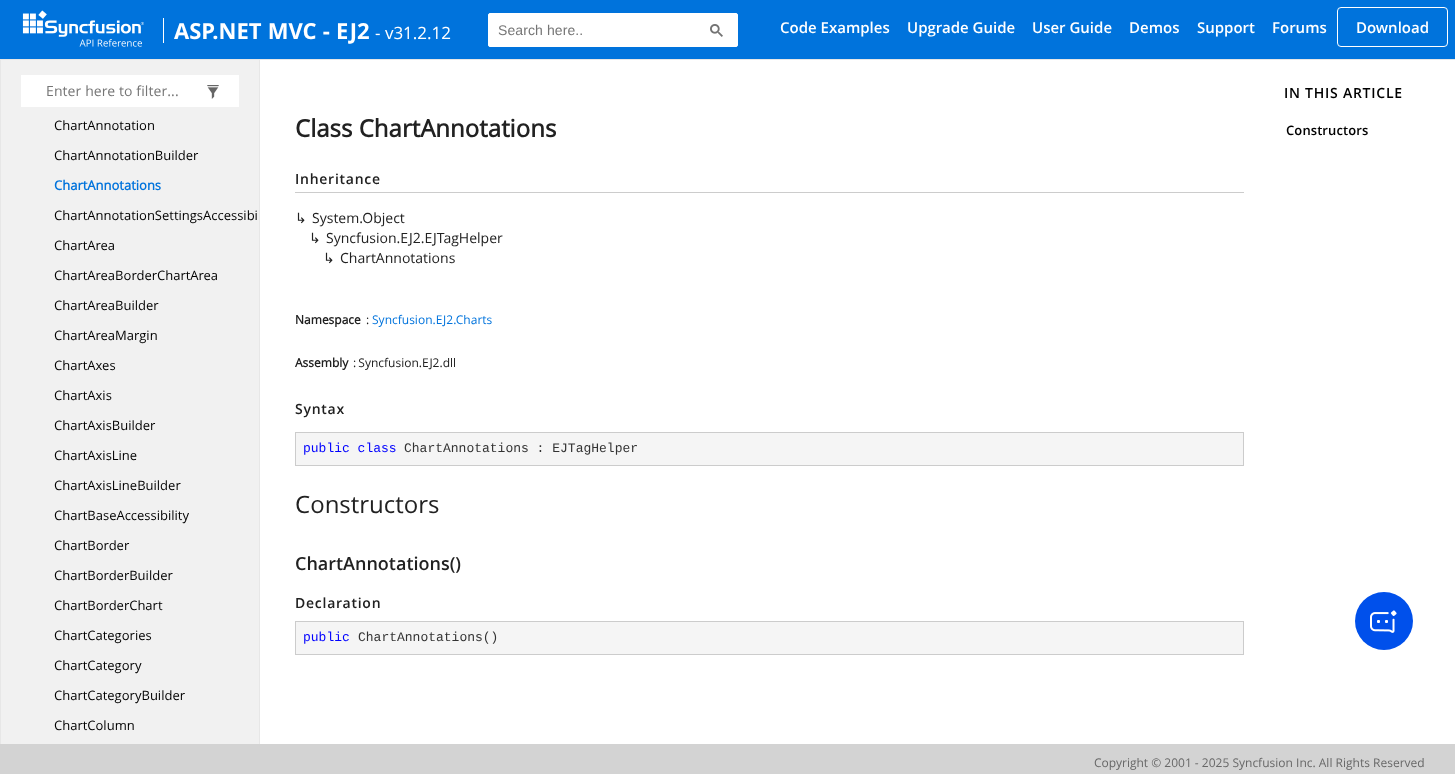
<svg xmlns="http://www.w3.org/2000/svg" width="1455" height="774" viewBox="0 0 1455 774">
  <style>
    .t1 { font: bold 22px 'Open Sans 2'; fill: #fff; }
    .t2 { font: 17px Open Sans; fill: #fff; }
    .t3 { font: 14px Liberation Sans; letter-spacing: 0.1px; fill: #757575; }
    .t4 { font: 600 15px Open Sans; fill: #fff; }
    .t5 { font: 14px Open Sans; letter-spacing: 0.1px; fill: #757575; }
    .t6 { font: 13px Open Sans; fill: #000; }
    .t7 { font: bold 13px Open Sans; fill: #0073dc; }
    .t8 { font: 600 14px Open Sans; letter-spacing: 0.75px; fill: #000; }
    .t9 { font: 600 13px Open Sans; letter-spacing: 0.1px; fill: #000; }
    .t10 { font: bold 24px Open Sans; fill: #212121; }
    .t11 { font: 600 14px Open Sans; letter-spacing: 0.75px; fill: #212121; }
    .t12 { font: 14px DejaVu Sans; fill: #212121; }
    .t13 { font: 14px Open Sans; fill: #212121; }
    .t14 { font: bold 12px Open Sans; fill: #212121; }
    .t15 { font: 12px Open Sans; fill: #212121; }
    .t16 { font: 12px Open Sans; fill: #0073dc; }
    .t17 { font: 13px Liberation Mono; fill: #00f; }
    .t18 { font: 13px Liberation Mono; fill: #333; }
    .t19 { font: 24px Open Sans; fill: #212121; }
    .t20 { font: 600 18px Open Sans; fill: #212121; }
    .t21 { font: 12px Open Sans; fill: #686868; }
  </style>
  <rect width="100%" height="100%" fill="#fff"/>
  <rect x="0" y="0" width="1455" height="59" fill="#0073dc"/>
  <rect x="0" y="59" width="1455" height="1" fill="#e7e7e7"/>
  <image x="22" y="10" width="122" height="37" href="images/1.png"/>
  <rect x="163" y="18" width="1" height="25" fill="#fff"/>
  <text x="174" y="39" word-spacing="0.5" class="t1">ASP.NET MVC - EJ2</text>
  <text x="375" y="39" class="t2">- v31.2.12</text>
  <rect x="488.5" y="13.5" width="249" height="33" rx="1.5" fill="#fff" stroke="#fff"/>
  <text x="498" y="35" class="t3">Search here..</text>
  <image x="710" y="24" width="13" height="13" href="images/2.png"/>
  <text x="780" y="33" class="t4">Code Examples</text>
  <text x="907" y="33" class="t4">Upgrade Guide</text>
  <text x="1032" y="33" class="t4">User Guide</text>
  <text x="1129" y="33" class="t4">Demos</text>
  <text x="1197" y="33" class="t4">Support</text>
  <text x="1272" y="33" class="t4">Forums</text>
  <rect x="1337.5" y="7.5" width="110" height="39" rx="3.5" fill="none" stroke="#fff"/>
  <text x="1356" y="33" class="t4">Download</text>
  <rect x="1" y="60" width="258" height="684" fill="#f1f1f1"/>
  <rect x="259" y="60" width="1" height="684" fill="#e7e7e7"/>
  <rect x="0" y="60" width="1" height="684" fill="#e7e7e7"/>
  <rect x="21" y="75" width="218" height="32" fill="#fff"/>
  <text x="46" y="96" class="t5">Enter here to filter...</text>
  <image x="207" y="85" width="12" height="14" href="images/3.png"/>
  <text x="54" y="130" class="t6">ChartAnnotation</text>
  <text x="54" y="160" class="t6">ChartAnnotationBuilder</text>
  <text x="54" y="190" class="t7">ChartAnnotations</text>
  <text x="54" y="220" class="t6">ChartAnnotationSettingsAccessibi</text>
  <text x="54" y="250" class="t6">ChartArea</text>
  <text x="54" y="280" class="t6">ChartAreaBorderChartArea</text>
  <text x="54" y="310" class="t6">ChartAreaBuilder</text>
  <text x="54" y="340" class="t6">ChartAreaMargin</text>
  <text x="54" y="370" class="t6">ChartAxes</text>
  <text x="54" y="400" class="t6">ChartAxis</text>
  <text x="54" y="430" class="t6">ChartAxisBuilder</text>
  <text x="54" y="460" class="t6">ChartAxisLine</text>
  <text x="54" y="490" class="t6">ChartAxisLineBuilder</text>
  <text x="54" y="520" class="t6">ChartBaseAccessibility</text>
  <text x="54" y="550" class="t6">ChartBorder</text>
  <text x="54" y="580" class="t6">ChartBorderBuilder</text>
  <text x="54" y="610" class="t6">ChartBorderChart</text>
  <text x="54" y="640" class="t6">ChartCategories</text>
  <text x="54" y="670" class="t6">ChartCategory</text>
  <text x="54" y="700" class="t6">ChartCategoryBuilder</text>
  <text x="54" y="730" class="t6">ChartColumn</text>
  <text x="1284" y="98" class="t8">IN THIS ARTICLE</text>
  <text x="1286" y="135" class="t9">Constructors</text>
  <text x="295" y="137" class="t10">Class ChartAnnotations</text>
  <rect x="295" y="192" width="949" height="1" fill="#ccc"/>
  <text x="295" y="184" class="t11">Inheritance</text>
  <text x="295" y="223" class="t12">↳</text>
  <text x="312" y="223" class="t13">System.Object</text>
  <text x="309" y="243" class="t12">↳</text>
  <text x="326" y="243" class="t13">Syncfusion.EJ2.EJTagHelper</text>
  <text x="323" y="263" class="t12">↳</text>
  <text x="340" y="263" class="t13">ChartAnnotations</text>
  <text x="295" y="324" class="t14">Namespace</text>
  <text x="366" y="324" class="t15">:</text>
  <text x="372" y="324" class="t16">Syncfusion.EJ2.Charts</text>
  <text x="295" y="367" class="t14">Assembly</text>
  <text x="353" y="367" word-spacing="-1" class="t15">: Syncfusion.EJ2.dll</text>
  <text x="295" y="414" class="t11">Syntax</text>
  <rect x="295.5" y="432.5" width="948" height="33" fill="#f5f5f5" stroke="#ccc"/>
  <text x="303" y="452" class="t17">public class</text>
  <text x="404" y="452" class="t18">ChartAnnotations : EJTagHelper</text>
  <text x="295" y="513" class="t19">Constructors</text>
  <text x="295" y="570" class="t20">ChartAnnotations()</text>
  <text x="295" y="608" class="t11">Declaration</text>
  <rect x="295.5" y="621.5" width="948" height="33" fill="#f5f5f5" stroke="#ccc"/>
  <text x="303" y="641" class="t17">public</text>
  <text x="358" y="641" class="t18">ChartAnnotations()</text>
  <circle cx="1384" cy="621" r="29" fill="#0050eb"/>
  <image x="1370" y="610" width="27" height="23" href="images/4.png"/>
  <rect x="0" y="744" width="1455" height="30" fill="#d3d3d3"/>
  <text x="1094" y="767" class="t21">Copyright © 2001 - 2025 Syncfusion Inc. All Rights Reserved</text>
</svg>
